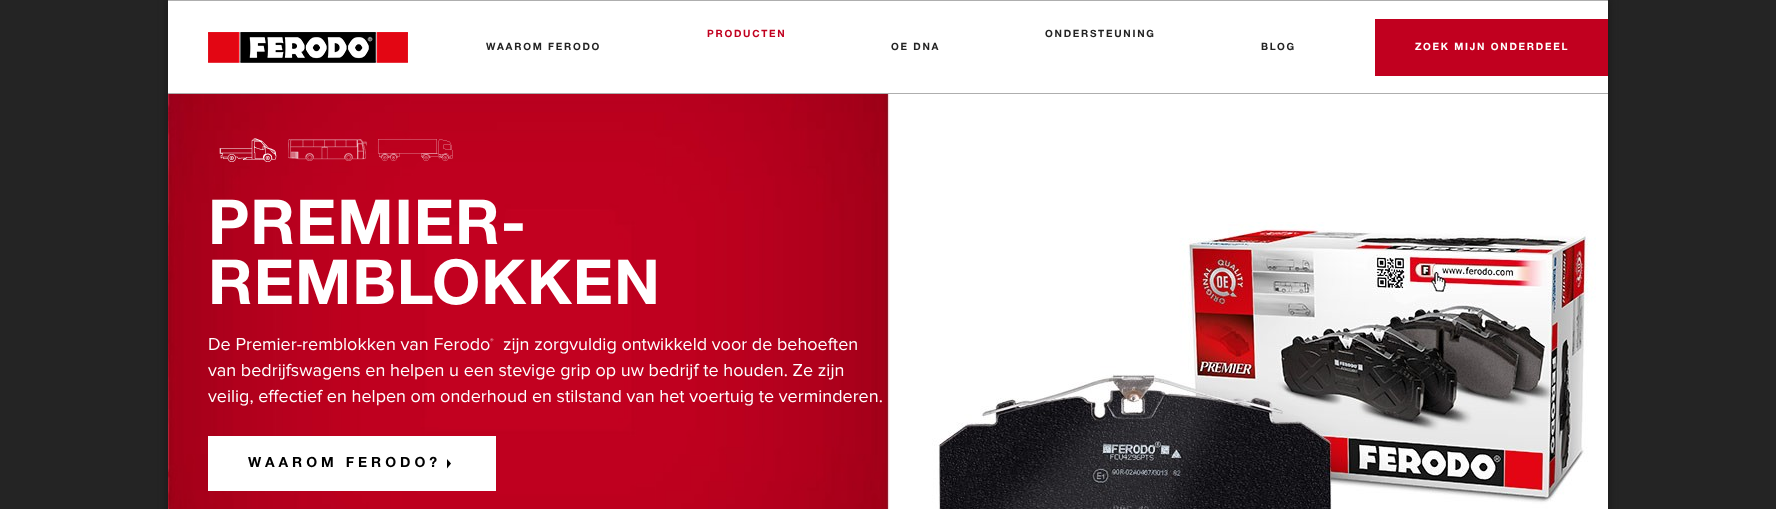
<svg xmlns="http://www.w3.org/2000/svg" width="1776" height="509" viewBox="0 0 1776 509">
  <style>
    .t1 { font: 10px '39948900'; letter-spacing: 1.75px; fill: #c1001f; }
    .t2 { font: 10px '39948900'; letter-spacing: 1.75px; fill: #242424; }
    .t3 { font: 10px '39948900'; letter-spacing: 1.75px; fill: #fff; }
    .t4 { font: 62px '39948900'; letter-spacing: 1px; fill: #fff; }
    .t5 { font: 18px Proxima Nova; fill: #fff; }
    .t6 { font: 7px Proxima Nova; fill: #fff; }
    .t7 { font: 14px '39948900'; letter-spacing: 4px; fill: #000; }
  </style>
  <rect width="100%" height="100%" fill="#242424"/>
  <rect x="168" y="0" width="1440" height="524" fill="#181818" filter="blur(5px)"/>
  <rect x="890" y="94" width="718" height="415" fill="#fff"/>
  <rect x="168" y="1" width="1440" height="92" fill="#fff"/>
  <rect x="168" y="0" width="1440" height="1" fill="#aeaeae"/>
  <rect x="168" y="93" width="1440" height="1" fill="#aeaeae"/>
  <image x="208" y="32" width="200" height="31" href="images/1.png"/>
  <text x="707" y="37" class="t1">PRODUCTEN</text>
  <text x="1045" y="37" class="t2">ONDERSTEUNING</text>
  <text x="486" y="50" class="t2">WAAROM FERODO</text>
  <text x="891" y="50" class="t2">OE DNA</text>
  <text x="1261" y="50" class="t2">BLOG</text>
  <rect x="1375" y="19" width="233" height="57" fill="#c1001f"/>
  <text x="1415" y="50" class="t3">ZOEK MIJN ONDERDEEL</text>
  <image x="168" y="94" width="722" height="415" href="images/2.png"/>
  <image x="219" y="138" width="234" height="24" href="images/3.png"/>
  <text x="208" y="244" class="t4">PREMIER-</text>
  <text x="208" y="304" class="t4">REMBLOKKEN</text>
  <text x="208" y="350" class="t5">De Premier-remblokken van Ferodo</text>
  <text x="490" y="343" class="t6">®</text>
  <text x="503" y="350" class="t5">zijn zorgvuldig ontwikkeld voor de behoeften</text>
  <text x="208" y="376" class="t5">van bedrijfswagens en helpen u een stevige grip op uw bedrijf te houden. Ze zijn</text>
  <text x="208" y="402" class="t5">veilig, effectief en helpen om onderhoud en stilstand van het voertuig te verminderen.</text>
  <rect x="208" y="436" width="288" height="55" fill="#fff"/>
  <text x="248" y="467" class="t7">WAAROM FERODO?</text>
  <path d="M451 463.5L447 468.5V459Z" fill="#000"/>
  <image x="932" y="222" width="664" height="287" href="images/4.png"/>
</svg>
